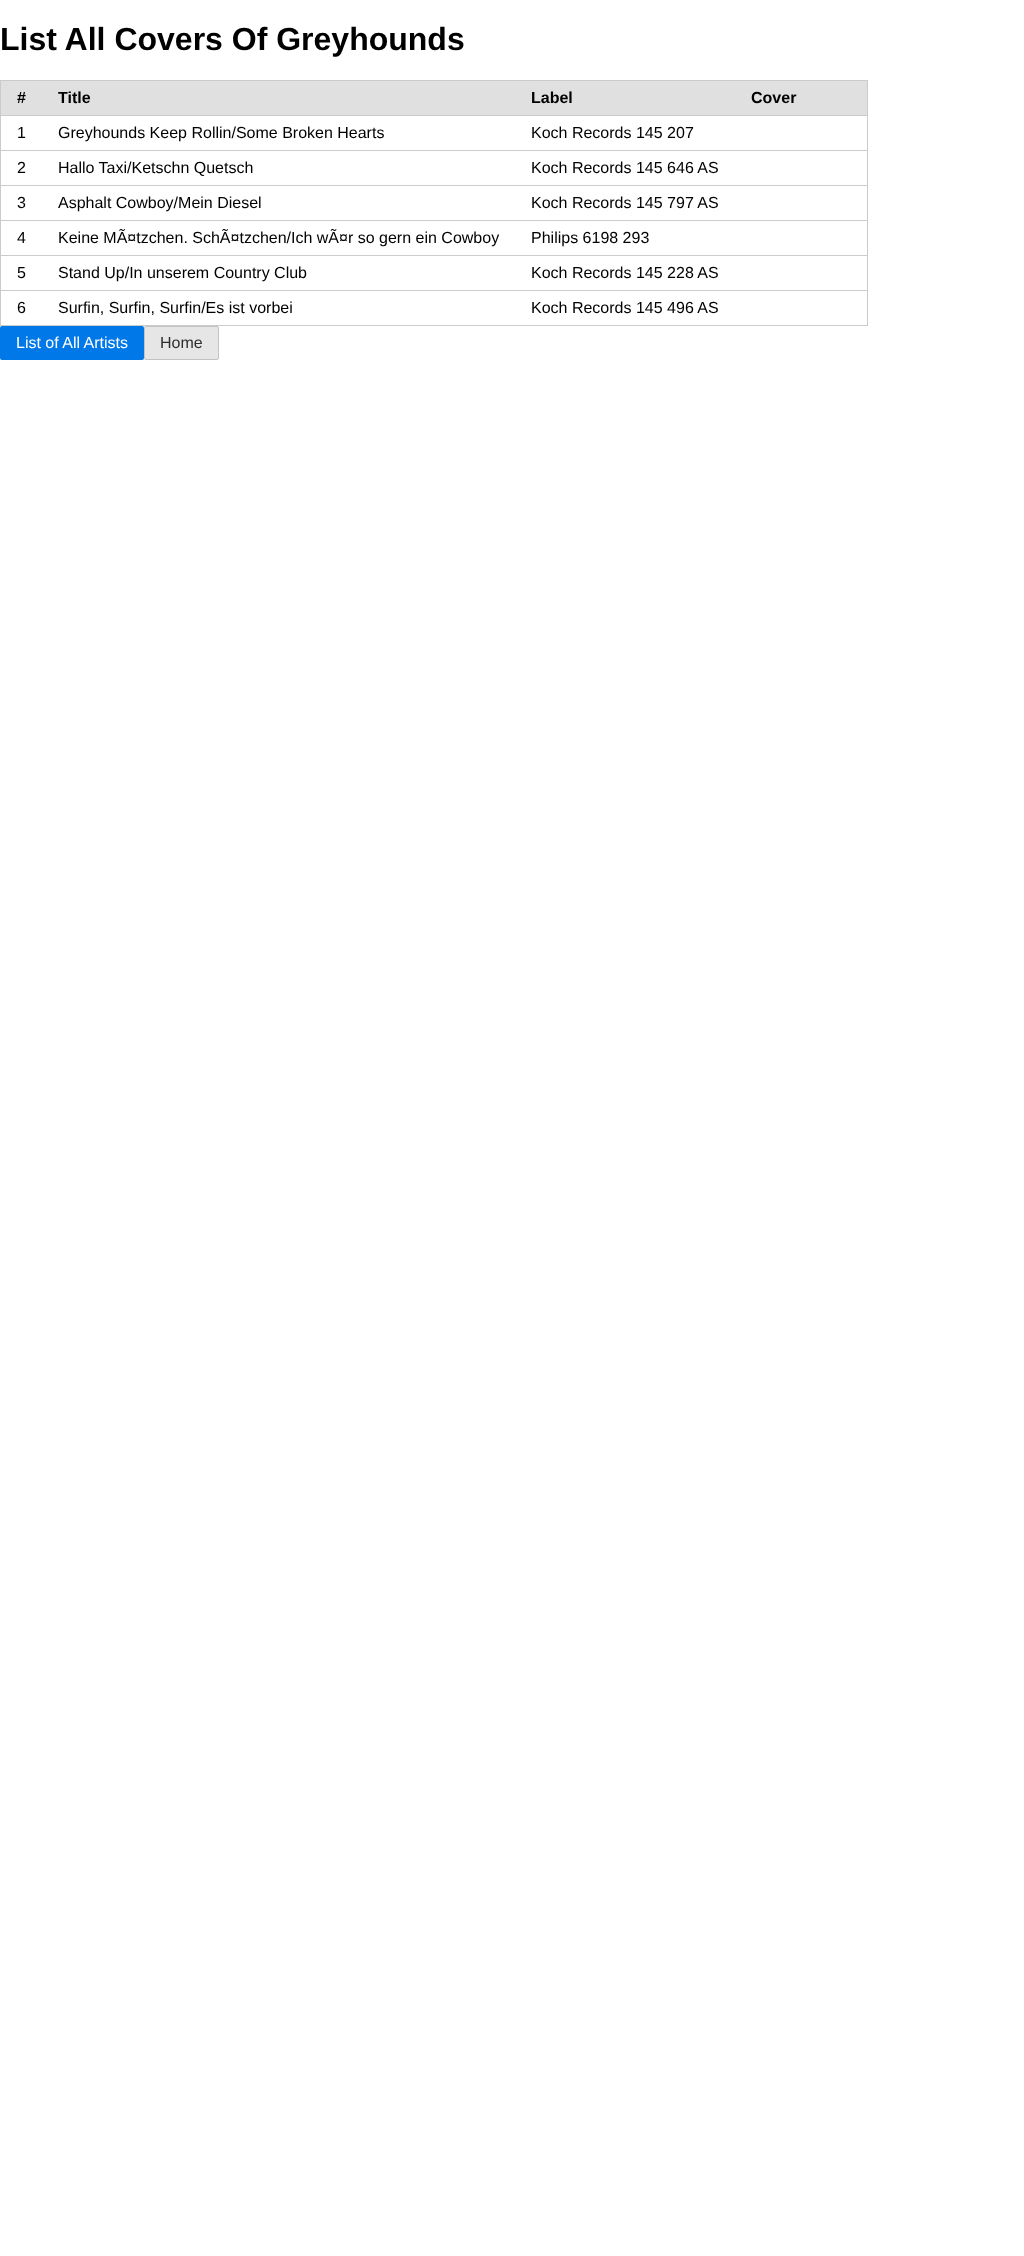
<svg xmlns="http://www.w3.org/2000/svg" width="1024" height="2256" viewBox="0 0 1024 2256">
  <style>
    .t1 { font: bold 32px Liberation Sans; fill: #000; }
    .t2 { font: bold 16px Liberation Sans; fill: #000; }
    .t3 { font: 16px Liberation Sans; fill: #000; }
    .t4 { font: 16px Liberation Sans; fill: #fff; }
    .t5 { font: 16px Liberation Sans; fill: #2e2e2e; }
  </style>
  <rect width="100%" height="100%" fill="#fff"/>
  <text x="0" y="50" class="t1">List All Covers Of Greyhounds</text>
  <rect x="0" y="80" width="868" height="1" fill="#cbcbcb"/>
  <rect x="867" y="80" width="1" height="246" fill="#cbcbcb"/>
  <rect x="0" y="325" width="868" height="1" fill="#cbcbcb"/>
  <rect x="0" y="80" width="1" height="246" fill="#cbcbcb"/>
  <rect x="1" y="81" width="866" height="34" fill="#e0e0e0"/>
  <text x="17" y="103" class="t2">#</text>
  <text x="58" y="103" class="t2">Title</text>
  <text x="531" y="103" class="t2">Label</text>
  <rect x="0" y="115" width="868" height="1" fill="#cbcbcb"/>
  <text x="751" y="103" class="t2">Cover</text>
  <text x="17" y="138" class="t3">1</text>
  <text x="58" y="138" class="t3">Greyhounds Keep Rollin/Some Broken Hearts</text>
  <text x="531" y="138" class="t3">Koch Records 145 207</text>
  <rect x="0" y="150" width="868" height="1" fill="#cbcbcb"/>
  <text x="17" y="173" class="t3">2</text>
  <text x="58" y="173" class="t3">Hallo Taxi/Ketschn Quetsch</text>
  <text x="531" y="173" class="t3">Koch Records 145 646 AS</text>
  <rect x="0" y="185" width="868" height="1" fill="#cbcbcb"/>
  <text x="17" y="208" class="t3">3</text>
  <text x="58" y="208" class="t3">Asphalt Cowboy/Mein Diesel</text>
  <text x="531" y="208" class="t3">Koch Records 145 797 AS</text>
  <rect x="0" y="220" width="868" height="1" fill="#cbcbcb"/>
  <text x="17" y="243" class="t3">4</text>
  <text x="58" y="243" class="t3">Keine MÃ¤tzchen. SchÃ¤tzchen/Ich wÃ¤r so gern ein Cowboy</text>
  <text x="531" y="243" class="t3">Philips 6198 293</text>
  <rect x="0" y="255" width="868" height="1" fill="#cbcbcb"/>
  <text x="17" y="278" class="t3">5</text>
  <text x="58" y="278" class="t3">Stand Up/In unserem Country Club</text>
  <text x="531" y="278" class="t3">Koch Records 145 228 AS</text>
  <rect x="0" y="290" width="868" height="1" fill="#cbcbcb"/>
  <text x="17" y="313" class="t3">6</text>
  <text x="58" y="313" class="t3">Surfin, Surfin, Surfin/Es ist vorbei</text>
  <text x="531" y="313" class="t3">Koch Records 145 496 AS</text>
  <rect x="0" y="326" width="144" height="34" rx="2" fill="#0078e7"/>
  <text x="16" y="348" class="t4">List of All Artists</text>
  <rect x="144" y="326" width="75" height="34" rx="2" fill="#e6e6e6"/>
  <rect x="144.5" y="326.5" width="74" height="33" rx="1.5" fill="none" stroke="#00000026"/>
  <text x="160" y="348" class="t5">Home</text>
</svg>
